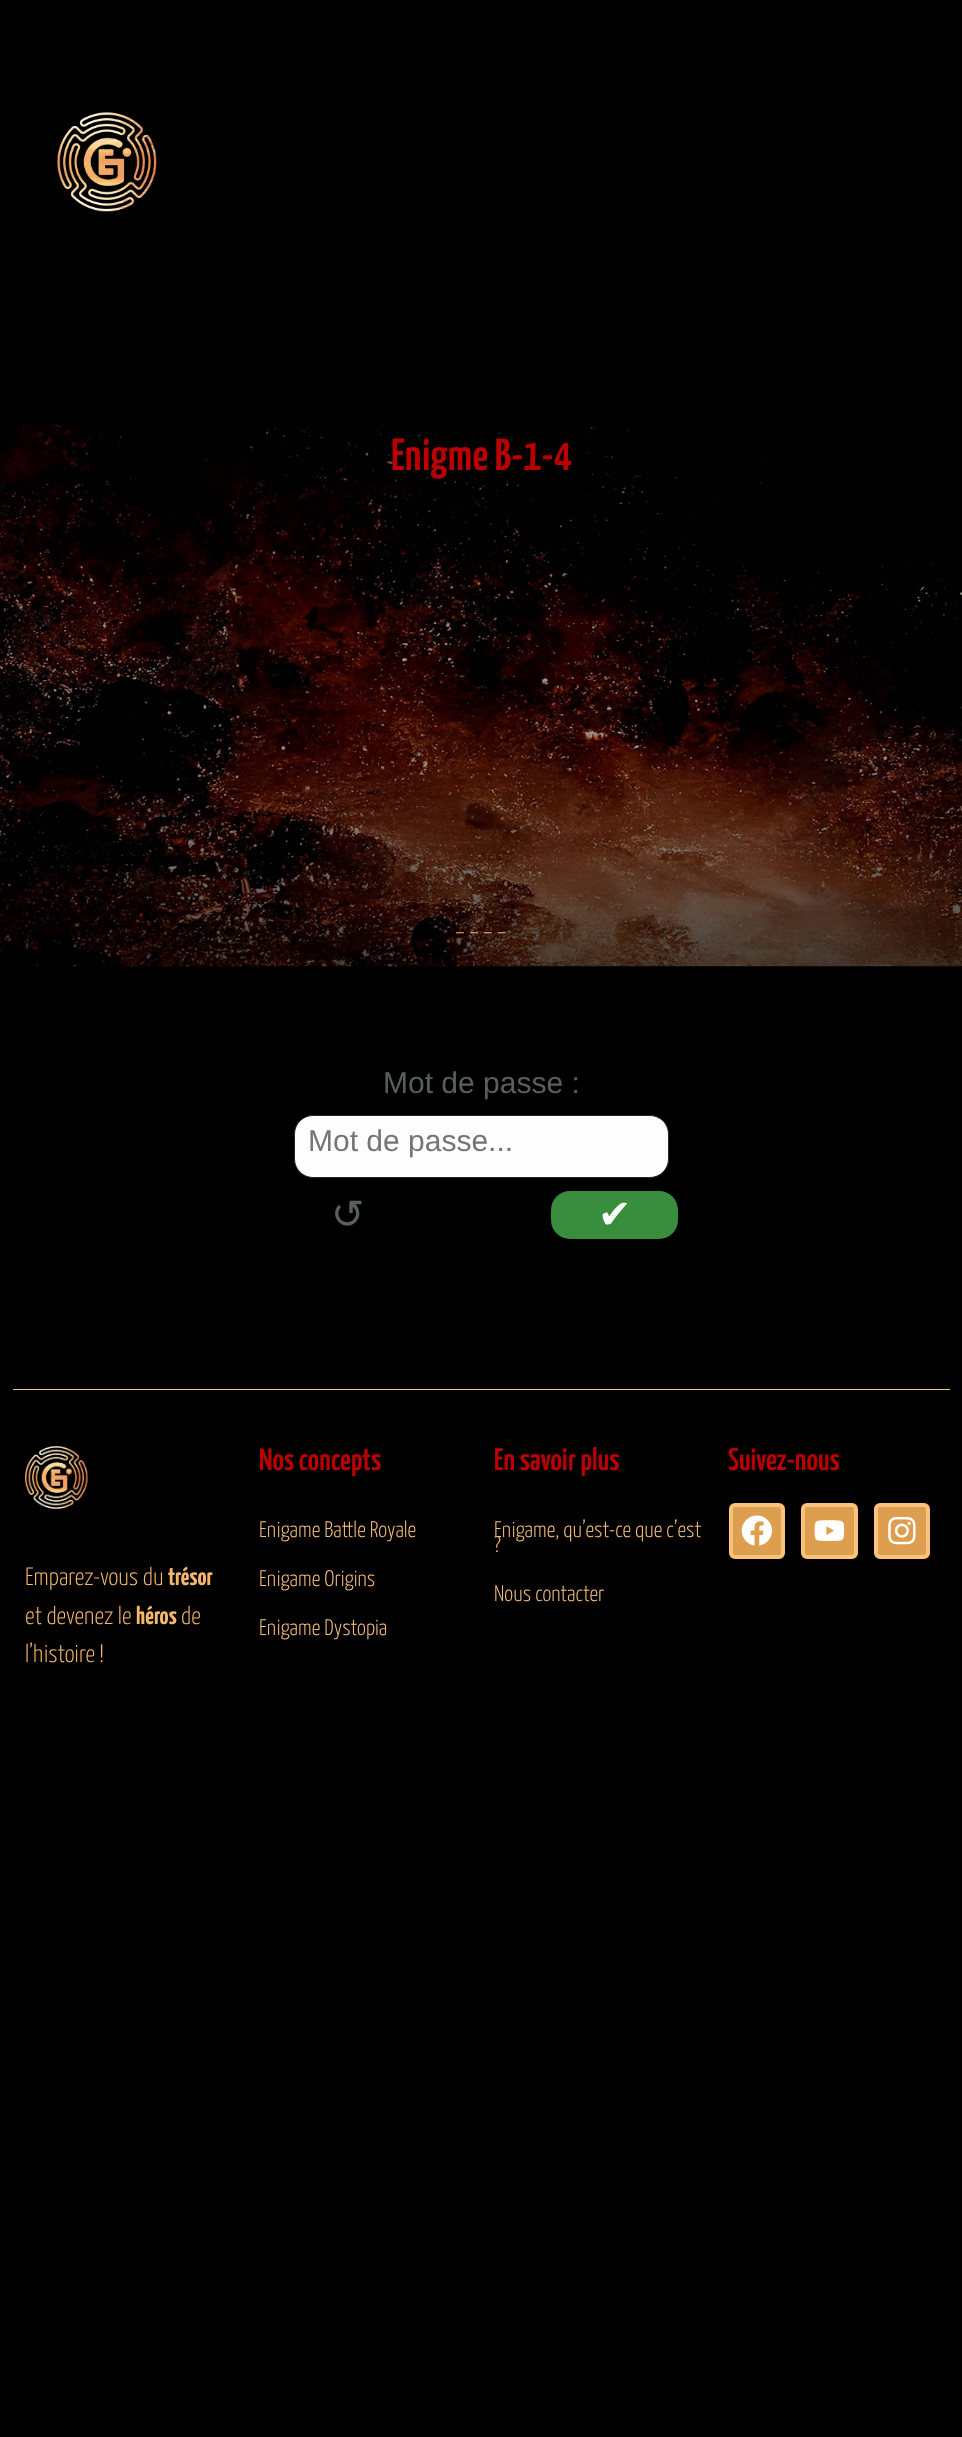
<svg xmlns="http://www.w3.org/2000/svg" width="962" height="2437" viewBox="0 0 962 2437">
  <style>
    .t1 { font: 600 45px Yanone Kaffeesatz; fill: #bb0001; }
    .t2 { font: 300 22.5px Yanone Kaffeesatz; fill: #f5b76b; }
    .t3 { font: 30px Liberation Sans; fill: #595f5f; }
    .t4 { font: 30px Liberation Sans; fill: #757575; }
    .t5 { font: 40px DejaVu Sans; fill: #595f5f; }
    .t6 { font: 40px DejaVu Sans; fill: #fdfdfd; }
    .t7 { font: 300 25px Yanone Kaffeesatz; fill: #f5b76b; }
    .t8 { font: bold 25px Yanone Kaffeesatz; fill: #f5b76b; }
    .t9 { font: 600 31.25px Yanone Kaffeesatz; fill: #bb0001; }
    .t10 { font: 300 22.5px Yanone Kaffeesatz; fill: #fbc27c; }
  </style>
  <rect width="100%" height="100%" fill="#000"/>
  <image x="57" y="112" width="100" height="100" href="images/1.png"/>
  <image x="0" y="423" width="962" height="544" href="images/2.png"/>
  <text x="391" y="470" class="t1">Enigme B-1-4</text>
  <text x="455" y="939" class="t2">– – – –</text>
  <text x="383" y="1093" class="t3">Mot de passe :</text>
  <rect x="294.5" y="1115.5" width="374" height="62" rx="18.5" fill="#fdfdfd" stroke="#272727"/>
  <text x="308" y="1151" class="t4">Mot de passe...</text>
  <text x="331" y="1228" class="t5">↺</text>
  <rect x="551" y="1191" width="127" height="48" rx="19" fill="#388e3c"/>
  <text x="598" y="1228" class="t6">✔︎</text>
  <rect x="13" y="1389" width="937" height="1" fill="#fbc27c"/>
  <image x="25" y="1446" width="63" height="63" href="images/3.png"/>
  <text x="25" y="1585" class="t7">Emparez-vous du</text>
  <text x="168" y="1585" class="t8">trésor</text>
  <text x="25" y="1624" class="t7">et devenez le</text>
  <text x="136" y="1624" class="t8">héros</text>
  <text x="181" y="1624" class="t7">de</text>
  <text x="25" y="1662" class="t7">l’histoire !</text>
  <text x="259" y="1470" class="t9">Nos concepts</text>
  <text x="259" y="1537" class="t10">Enigame Battle Royale</text>
  <text x="259" y="1586" class="t10">Enigame Origins</text>
  <text x="259" y="1635" class="t10">Enigame Dystopia</text>
  <text x="494" y="1470" class="t9">En savoir plus</text>
  <text x="494" y="1537" class="t10">Enigame, qu’est-ce que c’est</text>
  <text x="494" y="1552" class="t10">?</text>
  <text x="494" y="1601" class="t10">Nous contacter</text>
  <text x="728" y="1470" class="t9">Suivez-nous</text>
  <rect x="731" y="1505" width="52" height="52" rx="4" fill="#de9e4f" stroke="#fbc27c" stroke-width="4"/>
  <image x="741" y="1515" width="31" height="31" href="images/4.png"/>
  <rect x="803" y="1505" width="53" height="52" rx="4" fill="#de9e4f" stroke="#fbc27c" stroke-width="4"/>
  <image x="814" y="1520" width="31" height="22" href="images/5.png"/>
  <rect x="876" y="1505" width="52" height="52" rx="4" fill="#de9e4f" stroke="#fbc27c" stroke-width="4"/>
  <image x="888" y="1516" width="28" height="29" href="images/6.png"/>
</svg>
